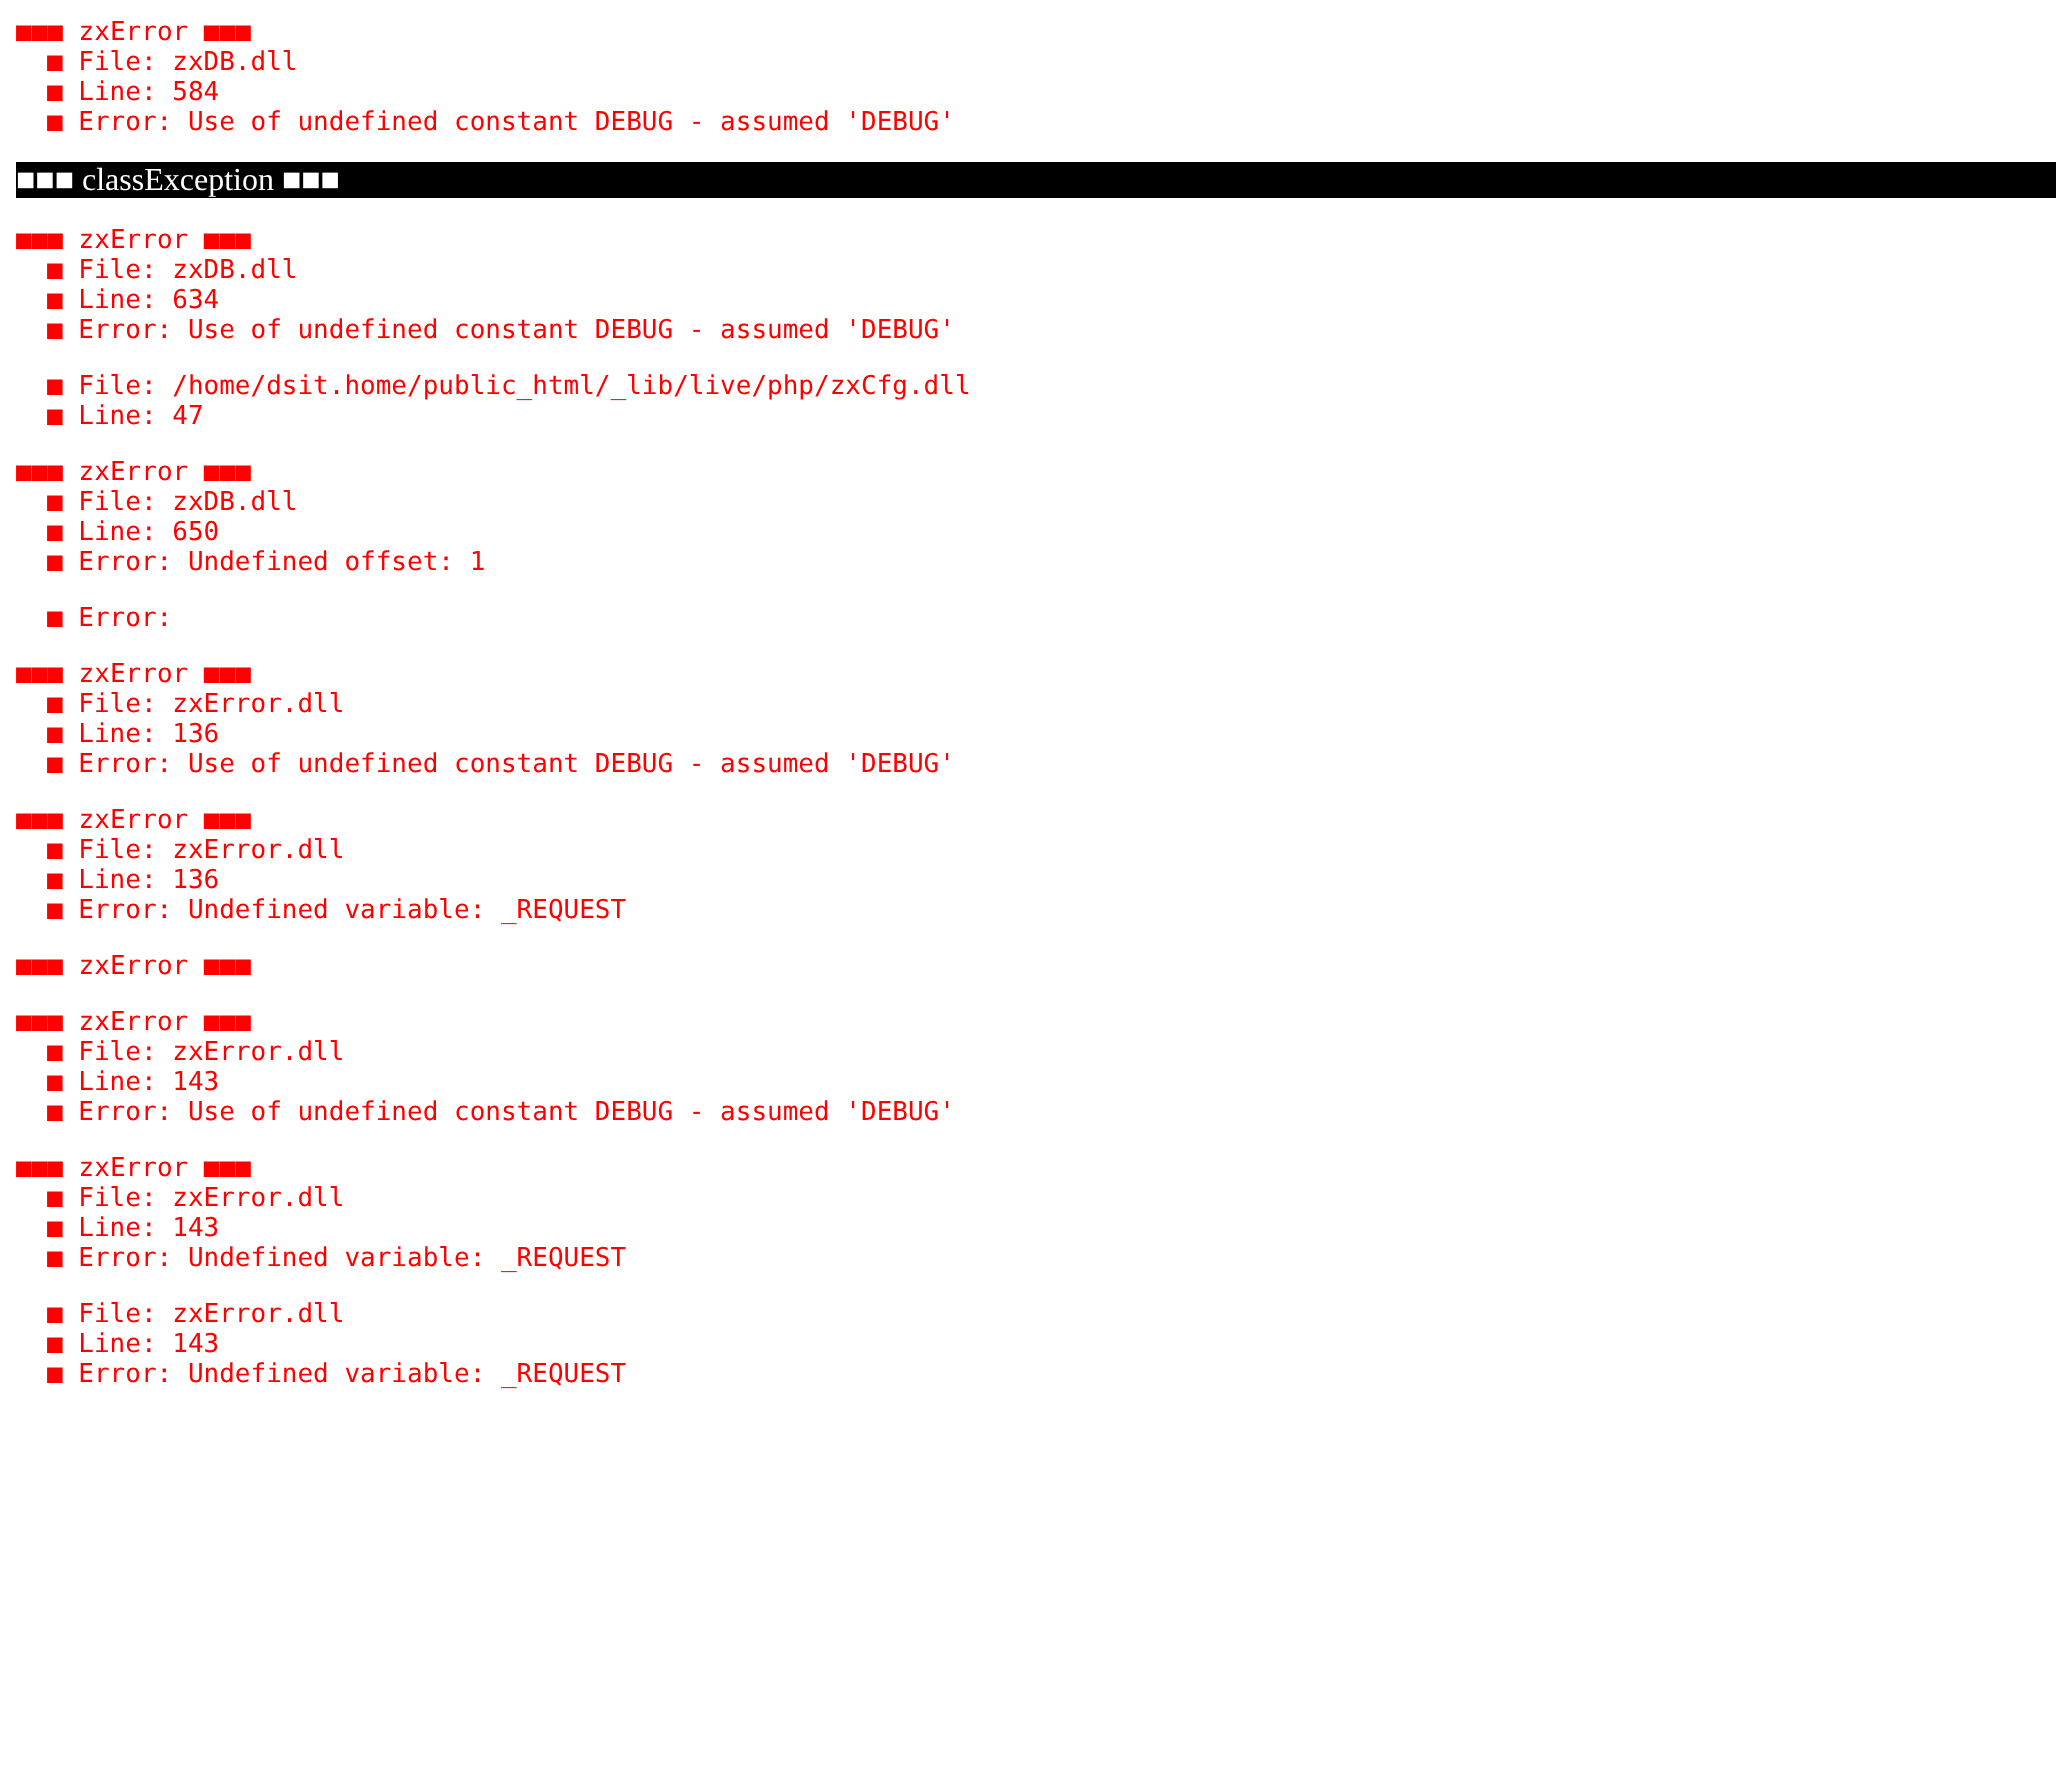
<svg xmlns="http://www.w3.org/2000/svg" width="2071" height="1789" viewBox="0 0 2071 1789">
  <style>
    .t1 { font: 26px DejaVu Sans Mono; fill: #f00; }
    .t2 { font: 32px Liberation Serif; fill: #fff; }
  </style>
  <rect width="100%" height="100%" fill="#fff"/>
  <text x="16" y="40" class="t1">■■■ zxError ■■■</text>
  <text x="47" y="70" class="t1">■ File: zxDB.dll</text>
  <text x="47" y="100" class="t1">■ Line: 584</text>
  <text x="47" y="130" class="t1">■ Error: Use of undefined constant DEBUG - assumed 'DEBUG'</text>
  <rect x="16" y="162" width="2040" height="36" fill="#000"/>
  <text x="16" y="190" class="t2">■■■ classException ■■■</text>
  <text x="16" y="248" class="t1">■■■ zxError ■■■</text>
  <text x="47" y="278" class="t1">■ File: zxDB.dll</text>
  <text x="47" y="308" class="t1">■ Line: 634</text>
  <text x="47" y="338" class="t1">■ Error: Use of undefined constant DEBUG - assumed 'DEBUG'</text>
  <text x="47" y="394" class="t1">■ File: /home/dsit.home/public_html/_lib/live/php/zxCfg.dll</text>
  <text x="47" y="424" class="t1">■ Line: 47</text>
  <text x="16" y="480" class="t1">■■■ zxError ■■■</text>
  <text x="47" y="510" class="t1">■ File: zxDB.dll</text>
  <text x="47" y="540" class="t1">■ Line: 650</text>
  <text x="47" y="570" class="t1">■ Error: Undefined offset: 1</text>
  <text x="47" y="626" class="t1">■ Error:</text>
  <text x="16" y="682" class="t1">■■■ zxError ■■■</text>
  <text x="47" y="712" class="t1">■ File: zxError.dll</text>
  <text x="47" y="742" class="t1">■ Line: 136</text>
  <text x="47" y="772" class="t1">■ Error: Use of undefined constant DEBUG - assumed 'DEBUG'</text>
  <text x="16" y="828" class="t1">■■■ zxError ■■■</text>
  <text x="47" y="858" class="t1">■ File: zxError.dll</text>
  <text x="47" y="888" class="t1">■ Line: 136</text>
  <text x="47" y="918" class="t1">■ Error: Undefined variable: _REQUEST</text>
  <text x="16" y="974" class="t1">■■■ zxError ■■■</text>
  <text x="16" y="1030" class="t1">■■■ zxError ■■■</text>
  <text x="47" y="1060" class="t1">■ File: zxError.dll</text>
  <text x="47" y="1090" class="t1">■ Line: 143</text>
  <text x="47" y="1120" class="t1">■ Error: Use of undefined constant DEBUG - assumed 'DEBUG'</text>
  <text x="16" y="1176" class="t1">■■■ zxError ■■■</text>
  <text x="47" y="1206" class="t1">■ File: zxError.dll</text>
  <text x="47" y="1236" class="t1">■ Line: 143</text>
  <text x="47" y="1266" class="t1">■ Error: Undefined variable: _REQUEST</text>
  <text x="47" y="1322" class="t1">■ File: zxError.dll</text>
  <text x="47" y="1352" class="t1">■ Line: 143</text>
  <text x="47" y="1382" class="t1">■ Error: Undefined variable: _REQUEST</text>
</svg>
